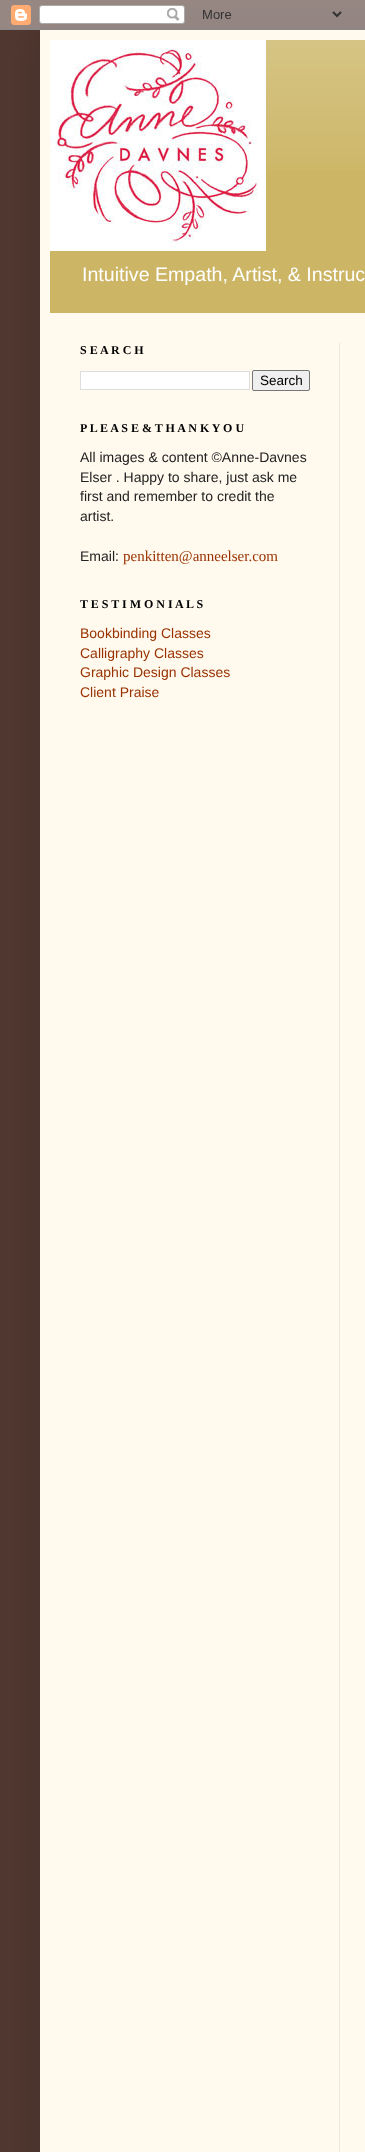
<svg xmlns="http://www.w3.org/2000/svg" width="365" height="2152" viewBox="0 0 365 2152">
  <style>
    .t1 { font: 19.6px Liberation Sans; fill: #fff; }
    .t2 { font: bold 12px Liberation Serif; fill: #000; }
    .t3 { font: 13.5px Liberation Sans; fill: #000; }
    .t4 { font: 14px Liberation Sans; fill: #222; }
    .t5 { font: 15px Liberation Serif; fill: #993200; }
    .t6 { font: 14px Liberation Sans; fill: #993200; }
  </style>
  <rect width="100%" height="100%" fill="#513831"/>
  <rect x="40" y="30" width="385" height="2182" fill="#00000026" filter="blur(20px)"/>
  <image x="0" y="0" width="365" height="30" href="images/1.png"/>
  <rect x="40" y="30" width="325" height="2122" fill="#fff9ee"/>
  <rect x="50" y="40" width="315" height="273" fill="#ccb666"/>
  <image x="266" y="40" width="99" height="130" href="images/2.png"/>
  <image x="50" y="40" width="216" height="211" href="images/3.png"/>
  <text x="82" y="281" class="t1">Intuitive Empath, Artist, &amp; Instruc</text>
  <text x="80" y="354" class="t2">S E A R C H</text>
  <rect x="80.5" y="371.5" width="169" height="18" fill="#fff" stroke="#ddd"/>
  <rect x="252.5" y="370.5" width="57" height="20" rx="1.5" fill="#efefef" stroke="#767676"/>
  <text x="260" y="385" class="t3">Search</text>
  <text x="80" y="432" class="t2">P L E A S E &amp; T H A N K Y O U</text>
  <text x="80" y="462" class="t4">All images &amp; content ©Anne-Davnes</text>
  <text x="80" y="482" class="t4">Elser . Happy to share, just ask me</text>
  <text x="80" y="501" class="t4">first and remember to credit the</text>
  <text x="80" y="521" class="t4">artist.</text>
  <text x="80" y="561" class="t4">Email:</text>
  <text x="123" y="561" class="t5">penkitten@anneelser.com</text>
  <text x="80" y="608" class="t2">T E S T I M O N I A L S</text>
  <text x="80" y="638" class="t6">Bookbinding Classes</text>
  <text x="80" y="658" class="t6">Calligraphy Classes</text>
  <text x="80" y="677" class="t6">Graphic Design Classes</text>
  <text x="80" y="697" class="t6">Client Praise</text>
  <rect x="339" y="343" width="1" height="1809" fill="#eee5dd"/>
</svg>
